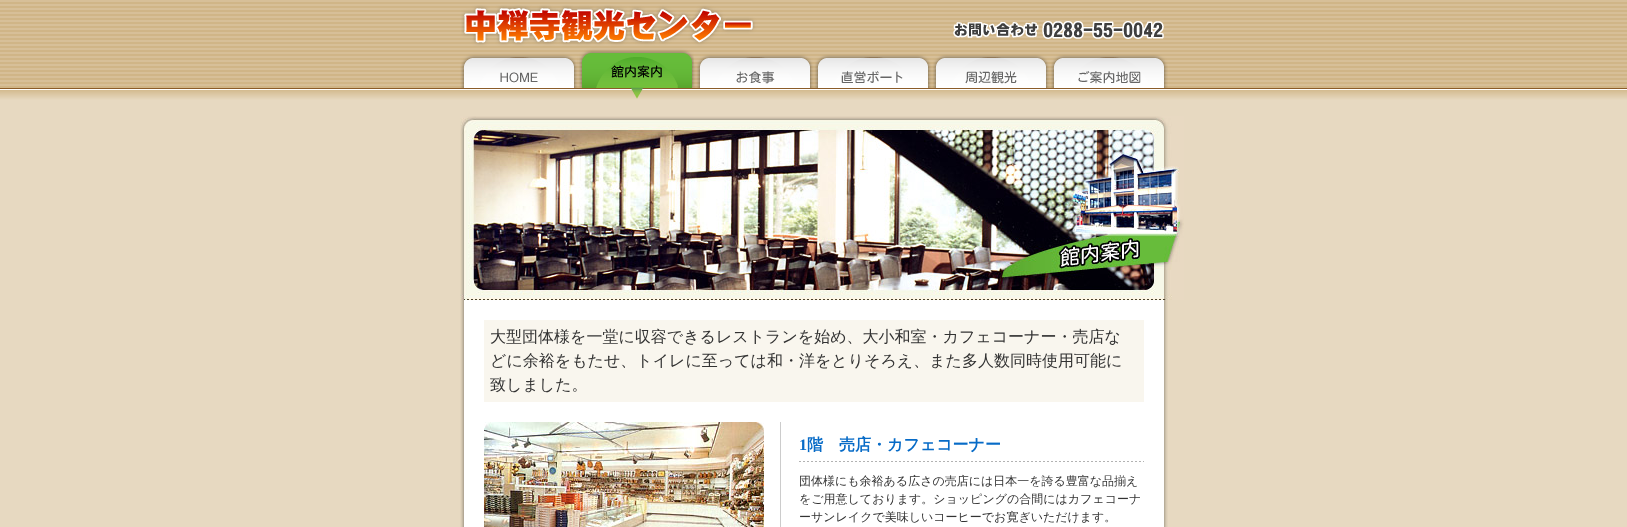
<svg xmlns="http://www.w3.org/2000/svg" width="1627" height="527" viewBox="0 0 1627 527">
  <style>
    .t1 { font: 500 16px WenQuanYi Zen Hei; fill: #333; }
    .t2 { font: bold 16px Liberation Serif; fill: #076bc7; }
    .t3 { font: bold 16px WenQuanYi Zen Hei; fill: #076bc7; }
    .t4 { font: 500 12px WenQuanYi Zen Hei; fill: #333; }
  </style>
  <rect width="100%" height="100%" fill="#fff"/>
  <image x="0" y="0" width="1627" height="100" href="images/1.png"/>
  <image x="461" y="5" width="703" height="39" href="images/2.png"/>
  <image x="460" y="44" width="117" height="44" href="images/3.png"/>
  <image x="577" y="44" width="117" height="55" href="images/4.png"/>
  <image x="694" y="44" width="118" height="44" href="images/5.png"/>
  <image x="812" y="54" width="118" height="34" href="images/6.png"/>
  <image x="930" y="54" width="118" height="34" href="images/7.png"/>
  <image x="1048" y="54" width="120" height="34" href="images/8.png"/>
  <rect x="0" y="100" width="1627" height="427" fill="#e7d9c1"/>
  <image x="460" y="116" width="724" height="184" href="images/9.png"/>
  <image x="460" y="300" width="14" height="227" href="images/10.png"/>
  <rect x="474" y="300" width="680" height="227" fill="#fff"/>
  <rect x="484" y="320" width="660" height="82" fill="#f9f6ee"/>
  <text x="490" y="342" class="t1">大型団体様を一堂に収容できるレストランを始め、大小和室・カフェコーナー・売店な</text>
  <text x="490" y="366" class="t1">どに余裕をもたせ、トイレに至っては和・洋をとりそろえ、また多人数同時使用可能に</text>
  <text x="490" y="390" class="t1">致しました。</text>
  <image x="484" y="422" width="280" height="105" href="images/11.png"/>
  <rect x="780" y="422" width="1" height="105" fill="#ccc"/>
  <text x="799" y="450" class="t2">1</text>
  <text x="807" y="450" class="t3">階　売店・カフェコーナー</text>
  <image x="799" y="461" width="345" height="1" href="images/12.png"/>
  <text x="799" y="485" class="t4">団体様にも余裕ある広さの売店には日本一を誇る豊富な品揃え</text>
  <text x="799" y="503" class="t4">をご用意しております。ショッピングの合間にはカフェコーナ</text>
  <text x="799" y="521" class="t4">ーサンレイクで美味しいコーヒーでお寛ぎいただけます。</text>
  <image x="1154" y="300" width="14" height="227" href="images/13.png"/>
</svg>
